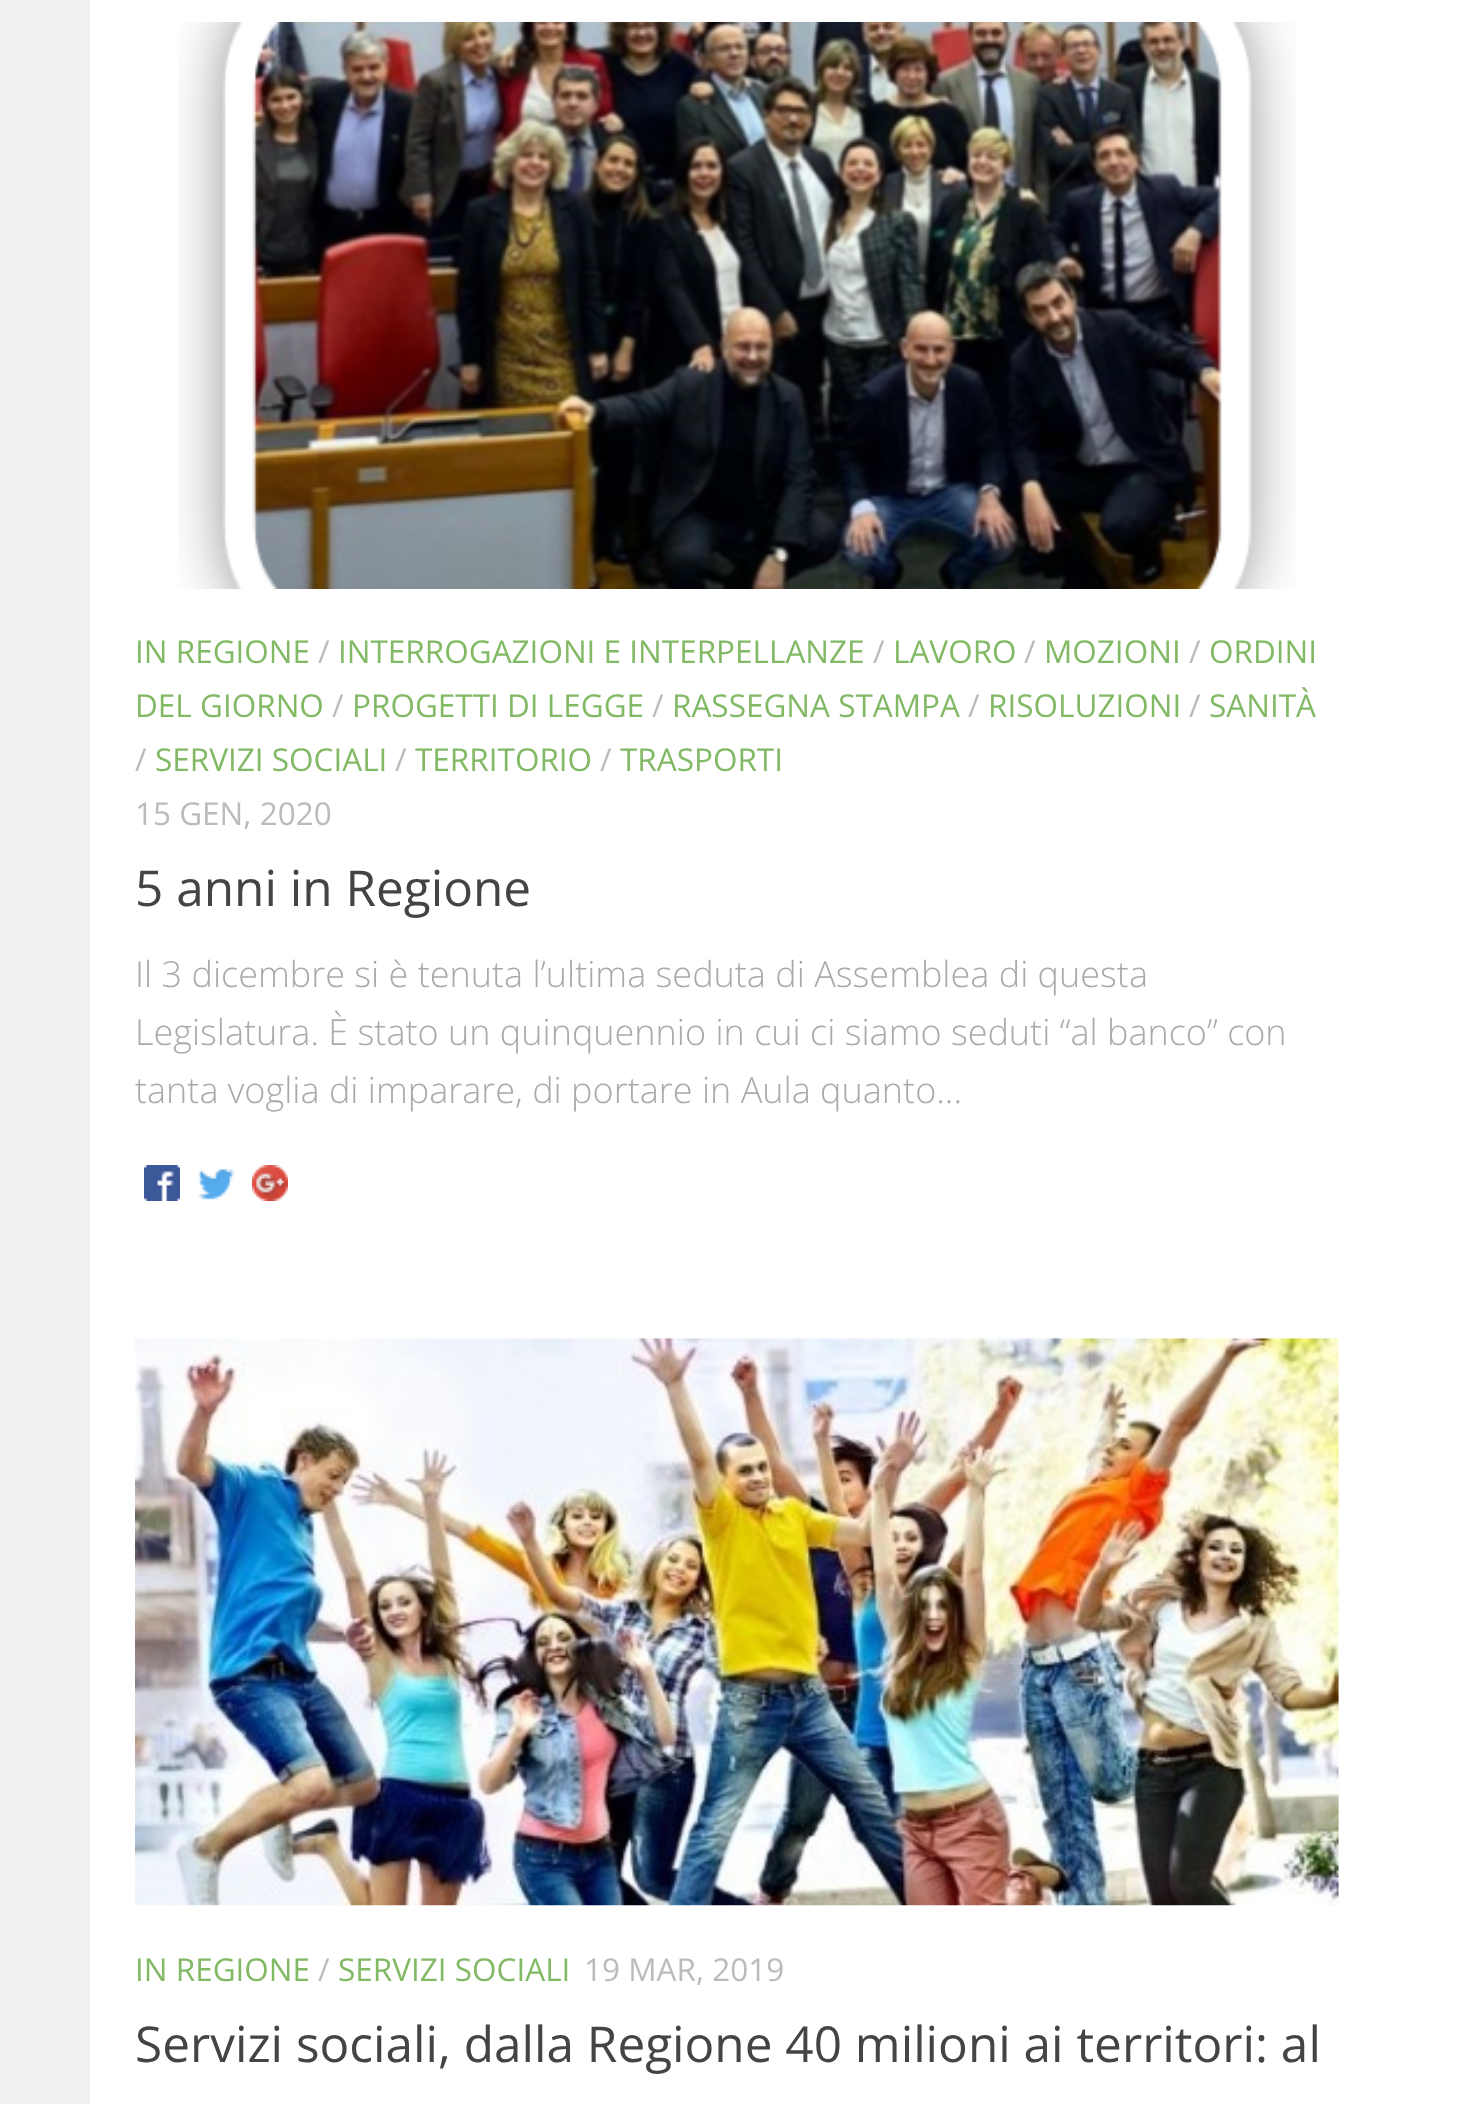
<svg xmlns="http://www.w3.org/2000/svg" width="1472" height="2104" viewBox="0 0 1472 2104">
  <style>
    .t1 { font: 31.5px Open Sans; fill: #82b965; }
    .t2 { font: 31.5px Open Sans; fill: #bbb; }
    .t3 { font: 49.5px Open Sans; fill: #444; }
    .t4 { font: 300 36px Open Sans; fill: #aaa; }
  </style>
  <rect width="100%" height="100%" fill="#fff"/>
  <rect x="0" y="0" width="90" height="2104" fill="#f0f0f0"/>
  <image x="178" y="22" width="1118" height="567" href="images/1.png"/>
  <text x="135" y="663" class="t1">IN REGIONE</text>
  <text x="318" y="663" class="t2">/</text>
  <text x="338" y="663" class="t1">INTERROGAZIONI E INTERPELLANZE</text>
  <text x="873" y="663" class="t2">/</text>
  <text x="893" y="663" class="t1">LAVORO</text>
  <text x="1024" y="663" class="t2">/</text>
  <text x="1044" y="663" class="t1">MOZIONI</text>
  <text x="1189" y="663" class="t2">/</text>
  <text x="1209" y="663" class="t1">ORDINI</text>
  <text x="135" y="717" class="t1">DEL GIORNO</text>
  <text x="332" y="717" class="t2">/</text>
  <text x="352" y="717" class="t1">PROGETTI DI LEGGE</text>
  <text x="652" y="717" class="t2">/</text>
  <text x="672" y="717" class="t1">RASSEGNA STAMPA</text>
  <text x="968" y="717" class="t2">/</text>
  <text x="988" y="717" class="t1">RISOLUZIONI</text>
  <text x="1189" y="717" class="t2">/</text>
  <text x="1209" y="717" class="t1">SANITÀ</text>
  <text x="135" y="771" class="t2">/</text>
  <text x="155" y="771" class="t1">SERVIZI SOCIALI</text>
  <text x="395" y="771" class="t2">/</text>
  <text x="415" y="771" class="t1">TERRITORIO</text>
  <text x="600" y="771" class="t2">/</text>
  <text x="620" y="771" class="t1">TRASPORTI</text>
  <text x="135" y="825" class="t2">15 GEN, 2020</text>
  <text x="135" y="906" class="t3">5 anni in Regione</text>
  <text x="135" y="987" class="t4">Il 3 dicembre si è tenuta l’ultima seduta di Assemblea di questa</text>
  <text x="135" y="1045" class="t4">Legislatura. È stato un quinquennio in cui ci siamo seduti “al banco” con</text>
  <text x="135" y="1103" class="t4">tanta voglia di imparare, di portare in Aula quanto...</text>
  <image x="144" y="1165" width="36" height="36" href="images/2.png"/>
  <image x="198" y="1169" width="36" height="31" href="images/3.png"/>
  <image x="252" y="1165" width="36" height="36" href="images/4.png"/>
  <image x="135" y="1338" width="1204" height="568" href="images/5.png"/>
  <text x="135" y="1981" class="t1">IN REGIONE</text>
  <text x="318" y="1981" class="t2">/</text>
  <text x="338" y="1981" class="t1">SERVIZI SOCIALI</text>
  <text x="584" y="1981" class="t2">19 MAR, 2019</text>
  <text x="135" y="2062" class="t3">Servizi sociali, dalla Regione 40 milioni ai territori: al</text>
</svg>
